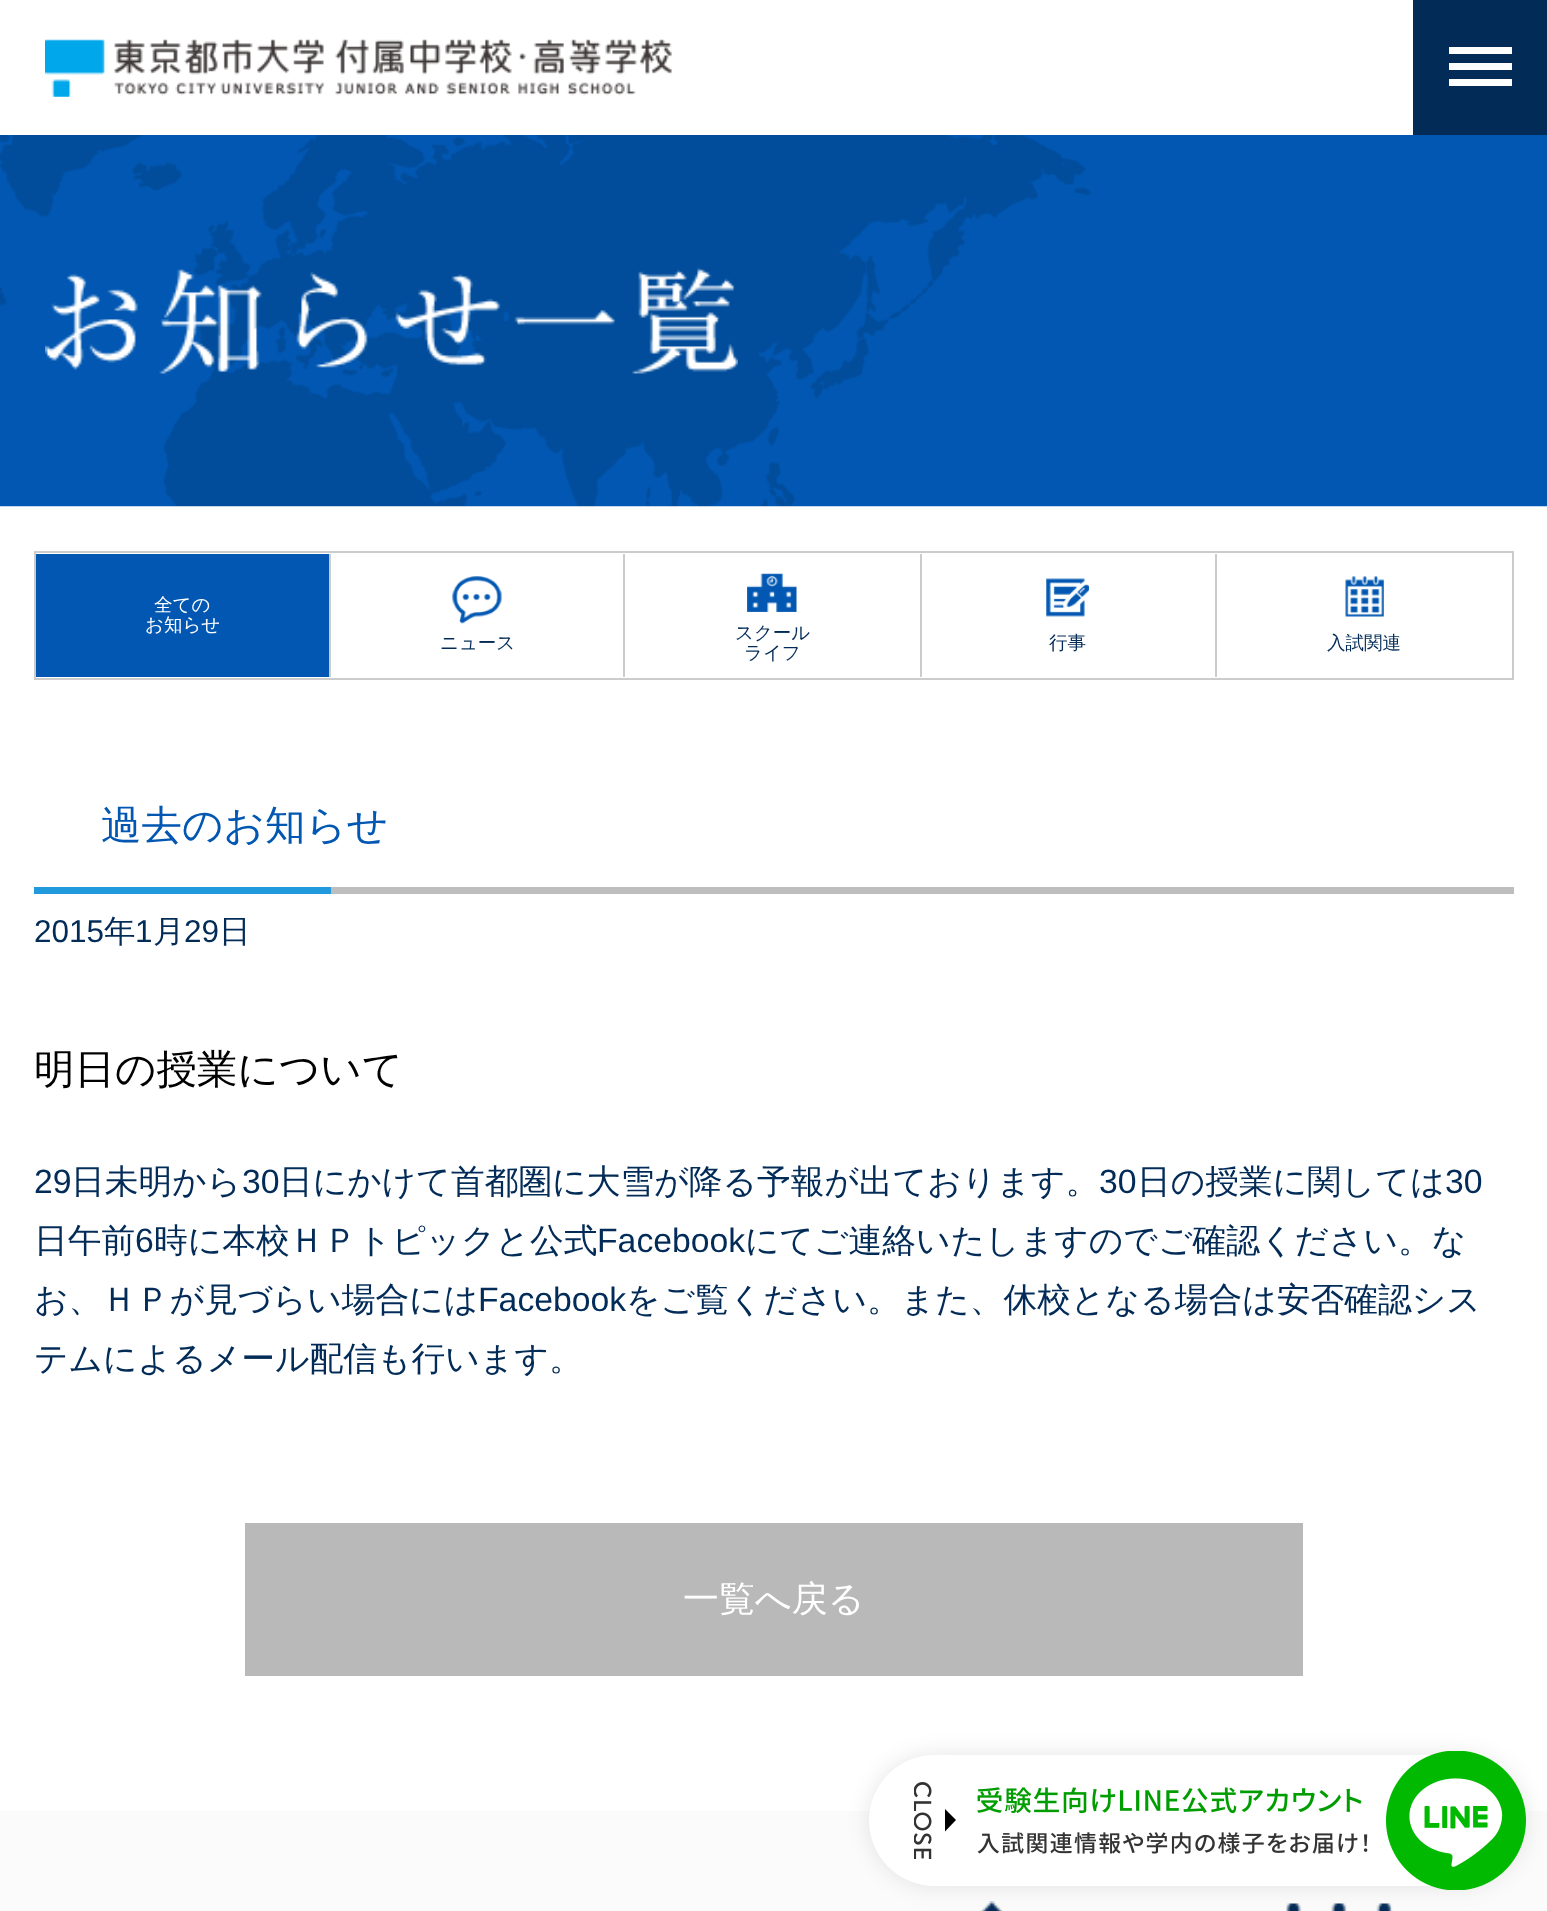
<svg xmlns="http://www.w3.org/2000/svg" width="1547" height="1911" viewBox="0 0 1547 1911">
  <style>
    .t1 { font: 500 18.5px WenQuanYi Zen Hei; fill: #fff; }
    .t2 { font: 500 18.5px WenQuanYi Zen Hei; fill: #022b57; }
    .t3 { font: 500 40.5px WenQuanYi Zen Hei; fill: #0157b1; }
    .t4 { font: 31.5px Liberation Sans; fill: #022b57; }
    .t5 { font: 500 31.5px WenQuanYi Zen Hei; fill: #022b57; }
    .t6 { font: 500 40.5px WenQuanYi Zen Hei; fill: #000; }
    .t7 { font: 33.75px Liberation Sans; fill: #022b57; }
    .t8 { font: 500 33.75px WenQuanYi Zen Hei; fill: #022b57; }
    .t9 { font: 500 36px WenQuanYi Zen Hei; fill: #fff; }
  </style>
  <rect width="100%" height="100%" fill="#fff"/>
  <image x="45" y="39" width="627" height="58" href="images/1.png"/>
  <rect x="1413" y="0" width="134" height="135" fill="#022b57"/>
  <rect x="1449" y="47" width="63" height="7" fill="#fff"/>
  <rect x="1449" y="63" width="63" height="7" fill="#fff"/>
  <rect x="1449" y="79" width="63" height="7" fill="#fff"/>
  <image x="0" y="135" width="1547" height="372" href="images/2.png"/>
  <image x="45" y="267" width="693" height="107" href="images/3.png"/>
  <rect x="35" y="552" width="1478" height="127" fill="none" stroke="#ccc" stroke-width="2"/>
  <rect x="329" y="554" width="2" height="123" fill="#ccc"/>
  <rect x="36" y="554" width="293" height="123" fill="#0157b1"/>
  <text x="154" y="611" class="t1">全ての</text>
  <text x="145" y="631" class="t1">お知らせ</text>
  <rect x="623" y="554" width="2" height="123" fill="#ccc"/>
  <image x="452" y="576" width="50" height="48" href="images/4.png"/>
  <text x="440" y="649" class="t2">ニュース</text>
  <rect x="920" y="554" width="2" height="123" fill="#ccc"/>
  <image x="747" y="573" width="50" height="39" href="images/5.png"/>
  <text x="735" y="639" class="t2">スクール</text>
  <text x="744" y="659" class="t2">ライフ</text>
  <rect x="1215" y="554" width="2" height="123" fill="#ccc"/>
  <image x="1046" y="578" width="43" height="39" href="images/6.png"/>
  <text x="1049" y="649" class="t2">行事</text>
  <image x="1345" y="576" width="39" height="41" href="images/7.png"/>
  <text x="1327" y="649" class="t2">入試関連</text>
  <rect x="331" y="887" width="1183" height="7" fill="#bebebe"/>
  <text x="101" y="839" class="t3">過去のお知らせ</text>
  <rect x="34" y="887" width="297" height="7" fill="#209adc"/>
  <text x="34" y="942" class="t4">2015</text>
  <text x="104" y="942" class="t5">年</text>
  <text x="135" y="942" class="t4">1</text>
  <text x="153" y="942" class="t5">月</text>
  <text x="184" y="942" class="t4">29</text>
  <text x="219" y="942" class="t5">日</text>
  <text x="34" y="1083" class="t6">明日の授業について</text>
  <text x="34" y="1193" class="t7">29</text>
  <text x="71" y="1193" class="t8">日未明から</text>
  <text x="242" y="1193" class="t7">30</text>
  <text x="279" y="1193" class="t8">日にかけて首都圏に大雪が降る予報が出ております。</text>
  <text x="1099" y="1193" class="t7">30</text>
  <text x="1137" y="1193" class="t8">日の授業に関しては</text>
  <text x="1445" y="1193" class="t7">30</text>
  <text x="34" y="1252" class="t8">日午前</text>
  <text x="135" y="1252" class="t7">6</text>
  <text x="154" y="1252" class="t8">時に本校ＨＰトピックと公式</text>
  <text x="597" y="1252" class="t7">Facebook</text>
  <text x="745" y="1252" class="t8">にてご連絡いたしますのでご確認ください。な</text>
  <text x="34" y="1311" class="t8">お、ＨＰが見づらい場合には</text>
  <text x="478" y="1311" class="t7">Facebook</text>
  <text x="626" y="1311" class="t8">をご覧ください。また、休校となる場合は安否確認シス</text>
  <text x="34" y="1370" class="t8">テムによるメール配信も行います。</text>
  <rect x="245" y="1523" width="1058" height="153" fill="#b9b9b9"/>
  <text x="683" y="1611" class="t9">一覧へ戻る</text>
  <rect x="0" y="1811" width="1547" height="100" fill="#fbfbfb"/>
  <image x="980" y="1901" width="23" height="10" href="images/12.png"/>
  <image x="1286" y="1903" width="107" height="8" href="images/13.png"/>
  <rect x="869" y="1755" width="657" height="131" rx="65.5" fill="#0000001a" filter="blur(11px)"/>
  <rect x="869" y="1755" width="657" height="131" rx="65.5" fill="#fff"/>
  <image x="914" y="1782" width="18" height="77" href="images/8.png"/>
  <path d="M945 1809L956 1820L945 1831.5Z" fill="#000"/>
  <image x="977" y="1787" width="385" height="27" href="images/9.png"/>
  <image x="977" y="1832" width="391" height="22" href="images/10.png"/>
  <image x="1386" y="1751" width="140" height="139" href="images/11.png"/>
</svg>
